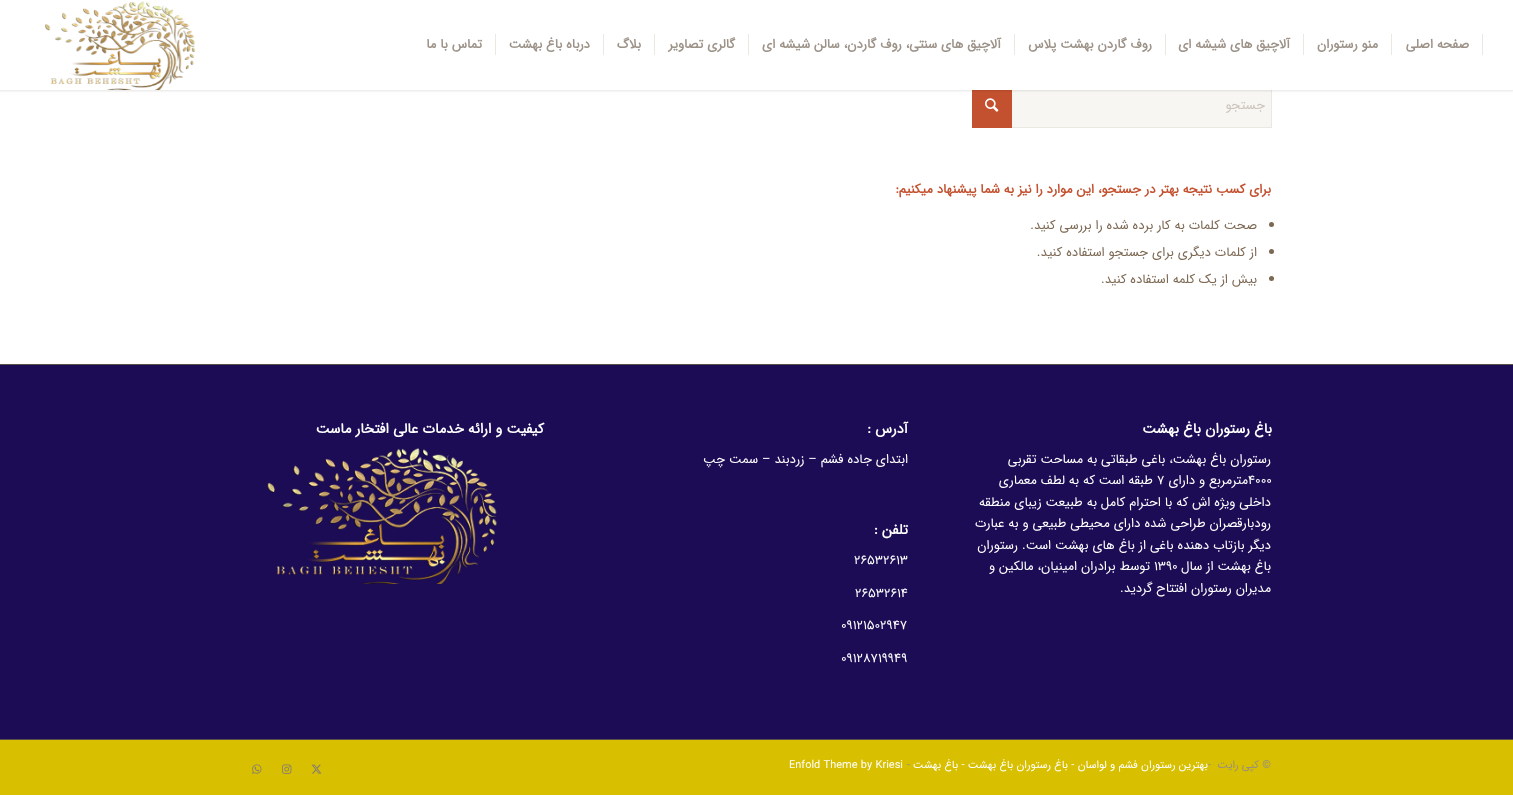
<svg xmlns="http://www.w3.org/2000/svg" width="1513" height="795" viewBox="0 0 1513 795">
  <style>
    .t1 { font: bold 13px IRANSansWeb; direction: rtl; fill: #9c9288; }
    .t2 { font: 13px IRANSansWeb; direction: rtl; fill: #cac4bd; }
    .t3 { font: bold 13px IRANSansWeb; direction: rtl; fill: #c3512f; }
    .t4 { font: 13px IRANSansWeb; direction: rtl; fill: #7c6853; }
    .t5 { font: bold 14.25px IRANSansWeb; direction: rtl; fill: #fff; }
    .t6 { font: 13px IRANSansWeb; direction: rtl; fill: #fff; }
    .t7 { font: 13px IRANSansWeb; fill: #fff; }
    .t8 { font: 11px IRANSansWeb; direction: rtl; fill: #988f81; }
    .t9 { font: 11px IRANSansWeb; fill: #988f81; }
    .t10 { font: 11px IRANSansWeb; direction: rtl; fill: #fff; }
    .t11 { font: 11px IRANSansWeb; fill: #fff; }
  </style>
  <rect width="100%" height="100%" fill="#fff"/>
  <rect x="1012" y="90" width="259" height="37" fill="#f8f6f2"/>
  <rect x="972.5" y="83.5" width="299" height="44" fill="none" stroke="#ebe8e2"/>
  <rect x="972" y="90" width="40" height="38" fill="#c3512f"/>
  <rect x="-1" y="-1" width="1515" height="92" fill="#0000001a" filter="blur(1px)"/>
  <rect x="0" y="0" width="1513" height="90" fill="#fff"/>
  <text x="1469" y="48" class="t1">صفحه اصلی</text>
  <rect x="1482" y="34" width="1" height="21" fill="#ebe8e2"/>
  <text x="1378" y="48" class="t1">منو رستوران</text>
  <rect x="1391" y="34" width="1" height="21" fill="#ebe8e2"/>
  <text x="1290" y="48" class="t1">آلاچیق های شیشه ای</text>
  <rect x="1303" y="34" width="1" height="21" fill="#ebe8e2"/>
  <text x="1152" y="48" class="t1">روف گاردن بهشت پلاس</text>
  <rect x="1165" y="34" width="1" height="21" fill="#ebe8e2"/>
  <text x="1001" y="48" class="t1">آلاچیق های سنتی، روف گاردن، سالن شیشه ای</text>
  <rect x="1014" y="34" width="1" height="21" fill="#ebe8e2"/>
  <text x="735" y="48" class="t1">گالری تصاویر</text>
  <rect x="748" y="34" width="1" height="21" fill="#ebe8e2"/>
  <text x="641" y="48" class="t1">بلاگ</text>
  <rect x="654" y="34" width="1" height="21" fill="#ebe8e2"/>
  <text x="590" y="48" class="t1">درباه باغ بهشت</text>
  <rect x="603" y="34" width="1" height="21" fill="#ebe8e2"/>
  <text x="482" y="48" class="t1">تماس با ما</text>
  <rect x="495" y="34" width="1" height="21" fill="#ebe8e2"/>
  <image x="45" y="1" width="151" height="89" href="images/1.png"/>
  <text x="1265" y="109" class="t2">جستجو</text>
  <image x="985" y="98" width="14" height="14" href="images/2.png"/>
  <text x="1271" y="193" class="t3">برای کسب نتیجه بهتر در جستجو، این موارد را نیز به شما پیشنهاد میکنیم:</text>
  <circle cx="1271.5" cy="224.5" r="2.5" fill="#7c6853"/>
  <text x="1257" y="229" class="t4">صحت کلمات به کار برده شده را بررسی کنید.</text>
  <circle cx="1271.5" cy="251.5" r="2.5" fill="#7c6853"/>
  <text x="1257" y="256" class="t4">از کلمات دیگری برای جستجو استفاده کنید.</text>
  <circle cx="1271.5" cy="278.5" r="2.5" fill="#7c6853"/>
  <text x="1257" y="283" class="t4">بیش از یک کلمه استفاده کنید.</text>
  <rect x="0" y="365" width="1513" height="374" fill="#1b0c55"/>
  <rect x="0" y="364" width="1513" height="1" fill="#575149"/>
  <text x="1272" y="433" class="t5">باغ رستوران باغ بهشت</text>
  <text x="1271" y="463" class="t6">رستوران باغ بهشت، باغی طبقاتی به مساحت تقربی</text>
  <text x="1248" y="484" class="t7">۴۰۰۰</text>
  <text x="1248" y="484" class="t6">مترمربع و دارای</text>
  <text x="1157" y="484" class="t7">۷</text>
  <text x="1153" y="484" class="t6">طبقه است که به لطف معماری</text>
  <text x="1271" y="506" class="t6">داخلی ویژه اش که با احترام کامل به طبیعت زیبای منطقه</text>
  <text x="1271" y="527" class="t6">رودبارقصران طراحی شده دارای محیطی طبیعی و به عبارت</text>
  <text x="1271" y="549" class="t6">دیگر بازتاب دهنده باغی از باغ های بهشت است. رستوران</text>
  <text x="1271" y="570" class="t6">باغ بهشت از سال</text>
  <text x="1154" y="570" class="t7">۱۳۹۰</text>
  <text x="1150" y="570" class="t6">توسط برادران امینیان، مالکین و</text>
  <text x="1271" y="592" class="t6">مدیران رستوران افتتاح گردید.</text>
  <text x="908" y="433" class="t5">آدرس :</text>
  <text x="908" y="463" class="t6">ابتدای جاده فشم – زردبند – سمت چپ</text>
  <text x="908" y="534" class="t5">تلفن :</text>
  <text x="854" y="564" class="t7">۲۶۵۳۲۶۱۳</text>
  <text x="855" y="597" class="t7">۲۶۵۳۲۶۱۴</text>
  <text x="841" y="629" class="t7">۰۹۱۲۱۵۰۲۹۴۷</text>
  <text x="841" y="662" class="t7">۰۹۱۲۸۷۱۹۹۴۹</text>
  <text x="544" y="433" class="t5">کیفیت و ارائه خدمات عالی افتخار ماست</text>
  <image x="267" y="447" width="230" height="137" href="images/3.png"/>
  <rect x="0" y="740" width="1513" height="55" fill="#d8bf00"/>
  <rect x="0" y="739" width="1513" height="1" fill="#575149"/>
  <text x="1271" y="768" class="t8">© کپی رایت</text>
  <text x="1208" y="768" class="t9">-</text>
  <text x="1208" y="768" class="t10">بهترین رستوران فشم و لواسان - باغ رستوران باغ بهشت - باغ بهشت</text>
  <text x="907" y="768" class="t9">-</text>
  <text x="789" y="768" class="t11">Enfold Theme by Kriesi</text>
  <image x="311" y="764" width="11" height="10" href="images/4.png"/>
  <image x="282" y="764" width="10" height="10" href="images/5.png"/>
  <image x="252" y="764" width="10" height="10" href="images/6.png"/>
</svg>
